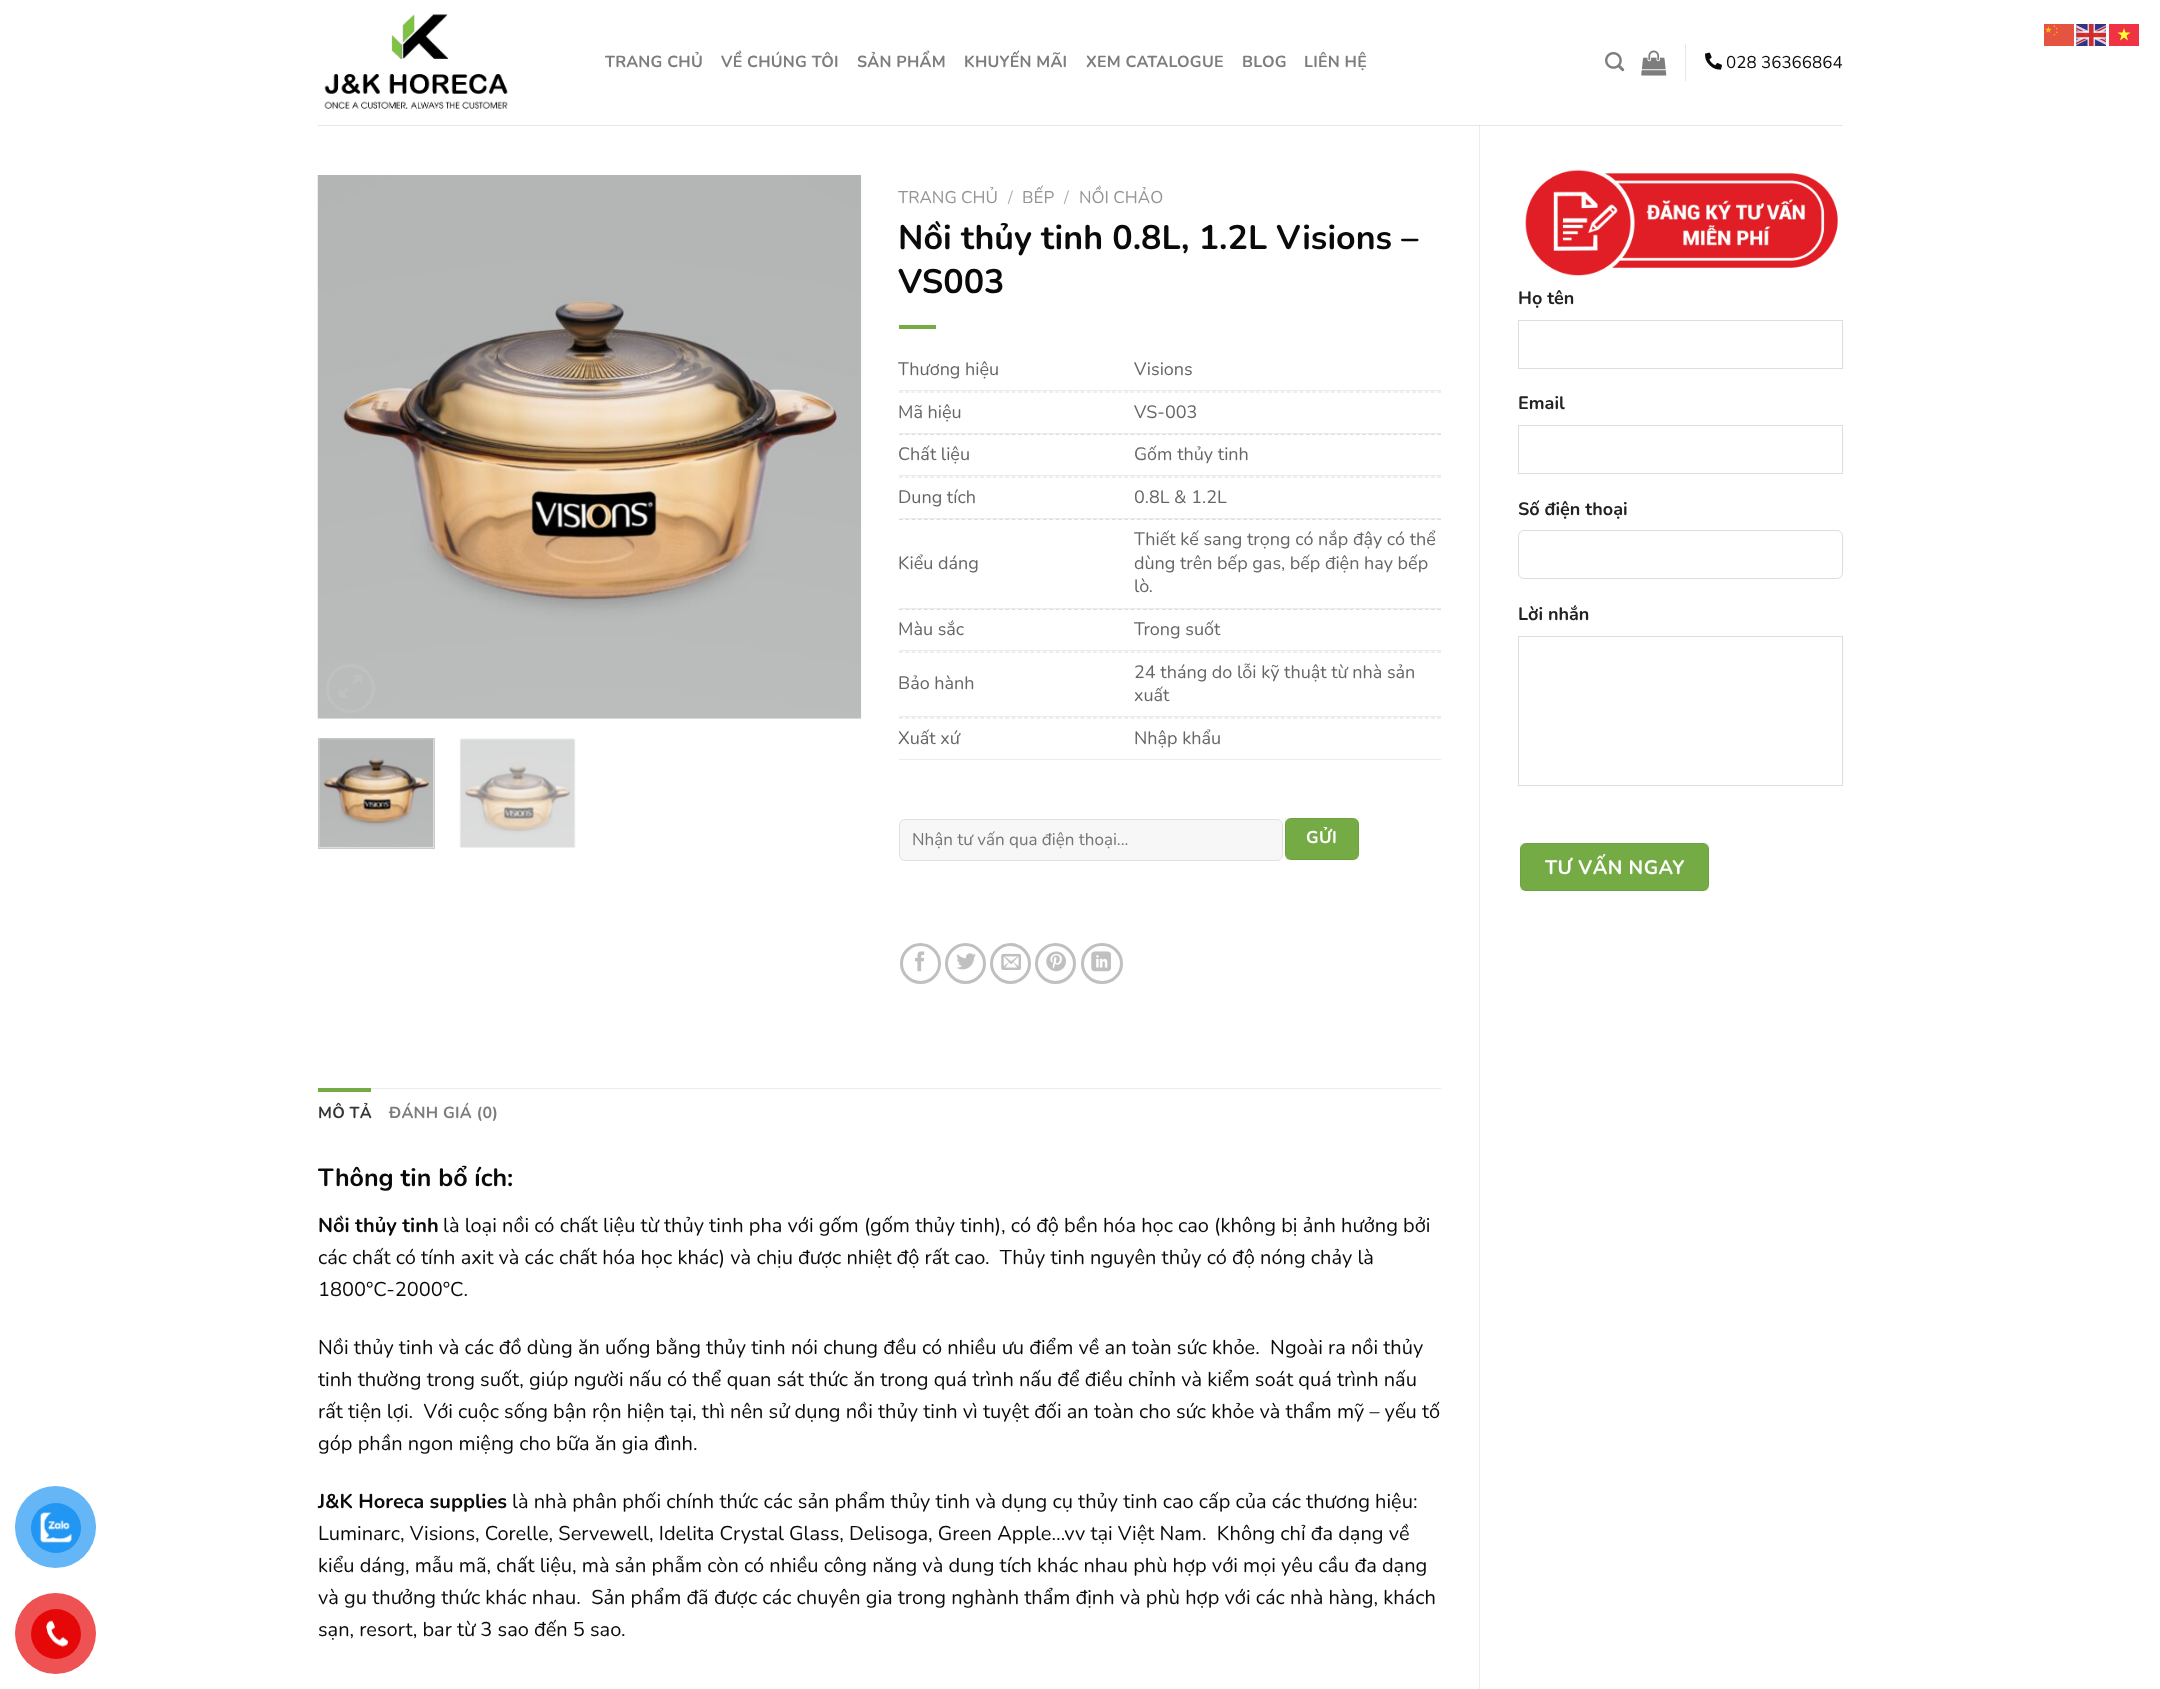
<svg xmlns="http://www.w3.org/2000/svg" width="2160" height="1689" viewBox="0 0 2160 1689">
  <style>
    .t1 { font: bold 16px Nunito; letter-spacing: 0.25px; fill: #7d7d7d; }
    .t2 { font: 17px Nunito; fill: #0a0a0a; }
    .t3 { font: 17px Nunito; fill: #949494; }
    .t4 { font: 17px Nunito; fill: #b2b2b2; }
    .t5 { font: bold 34px Nunito; fill: #0a0a0a; }
    .t6 { font: 18px Nunito; fill: #666; }
    .t7 { font: 17px Nunito; fill: #757575; }
    .t8 { font: bold 17px Nunito; letter-spacing: 0.5px; fill: #fff; }
    .t9 { font: bold 16px Nunito; letter-spacing: 0.25px; fill: #363636; }
    .t10 { font: bold 25px Nunito; fill: #0a0a0a; }
    .t11 { font: bold 20px Nunito; fill: #0a0a0a; }
    .t12 { font: 20px Nunito; fill: #0a0a0a; }
    .t13 { font: bold 18px Nunito; fill: #222; }
    .t14 { font: bold 19.5px Nunito; letter-spacing: 0.5px; fill: #fff; }
  </style>
  <rect width="100%" height="100%" fill="#fff"/>
  <image x="2044" y="24" width="30" height="22" href="images/1.png"/>
  <image x="2076" y="24" width="30" height="22" href="images/2.png"/>
  <rect x="2109" y="24" width="30" height="22" fill="#f03344"/>
  <path d="M2128 40.5L2124 37.5L2120 40.5L2121.5 35.5L2117.5 32.5H2122.5L2124 28L2125.5 32.5H2130.5L2126.5 35.5Z" fill="#ff3" fill-rule="evenodd"/>
  <rect x="15" y="1486" width="81" height="82" rx="40.5" fill="#64b6f7"/>
  <circle cx="56" cy="1528" r="25" fill="#2196f3"/>
  <image x="39" y="1512" width="33" height="31" href="images/3.png"/>
  <circle cx="55.5" cy="1633.5" r="40.5" fill="#ee5252"/>
  <circle cx="56" cy="1634" r="25" fill="#e60808"/>
  <image x="46" y="1620" width="22" height="27" href="images/4.png"/>
  <rect x="318" y="125" width="1525" height="1" fill="#e7e7e7"/>
  <image x="324" y="14" width="184" height="96" href="images/5.png"/>
  <text x="605" y="67" class="t1">TRANG CHỦ</text>
  <text x="721" y="67" class="t1">VỀ CHÚNG TÔI</text>
  <text x="857" y="67" class="t1">SẢN PHẨM</text>
  <text x="964" y="67" class="t1">KHUYẾN MÃI</text>
  <text x="1086" y="67" class="t1">XEM CATALOGUE</text>
  <text x="1242" y="67" class="t1">BLOG</text>
  <text x="1304" y="67" class="t1">LIÊN HỆ</text>
  <image x="1605" y="52" width="20" height="20" href="images/6.png"/>
  <image x="1641" y="50" width="26" height="26" href="images/7.png"/>
  <rect x="1685" y="44" width="1" height="37" fill="#e6e6e6"/>
  <image x="1705" y="52" width="17" height="18" href="images/8.png"/>
  <text x="1726" y="68" class="t2">028 36366864</text>
  <rect x="1479" y="125" width="1" height="1564" fill="#ececec"/>
  <rect x="1479" y="125" width="1" height="1" fill="#d5d5d5"/>
  <image x="317" y="175" width="545" height="544" href="images/9.png"/>
  <circle cx="350.5" cy="688.5" r="23" fill="none" stroke="#c0c0c0" stroke-width="3"/>
  <image x="339" y="675" width="23" height="23" href="images/10.png"/>
  <rect x="318.5" y="738.5" width="116" height="110" fill="none" stroke="#ccc"/>
  <image x="318" y="738" width="116" height="110" href="images/11.png"/>
  <image x="459" y="738" width="117" height="110" href="images/12.png"/>
  <text x="898" y="203" class="t3">TRANG CHỦ</text>
  <text x="1008" y="203" class="t4">/</text>
  <text x="1022" y="203" class="t3">BẾP</text>
  <text x="1064" y="203" class="t4">/</text>
  <text x="1079" y="203" class="t3">NỒI CHẢO</text>
  <text x="898" y="249" class="t5">Nồi thủy tinh 0.8L, 1.2L Visions –</text>
  <text x="898" y="293" class="t5">VS003</text>
  <rect x="899" y="325" width="37" height="4" fill="#74ab44"/>
  <rect x="899" y="390" width="542" height="1" fill="#ececec"/>
  <text x="898" y="375" class="t6">Thương hiệu</text>
  <text x="1134" y="375" class="t6">Visions</text>
  <path d="M899 392H1441" fill="none" stroke="#ddd" stroke-width="1.2" stroke-dasharray="3.75 2.51"/>
  <rect x="899" y="433" width="542" height="1" fill="#ececec"/>
  <text x="898" y="418" class="t6">Mã hiệu</text>
  <text x="1134" y="418" class="t6">VS-003</text>
  <path d="M899 434.5H1441" fill="none" stroke="#ddd" stroke-width="1.2" stroke-dasharray="3.75 2.51"/>
  <rect x="899" y="475" width="542" height="1" fill="#ececec"/>
  <text x="898" y="460" class="t6">Chất liệu</text>
  <text x="1134" y="460" class="t6">Gốm thủy tinh</text>
  <path d="M899 477H1441" fill="none" stroke="#ddd" stroke-width="1.2" stroke-dasharray="3.75 2.51"/>
  <rect x="899" y="518" width="542" height="1" fill="#ececec"/>
  <text x="898" y="503" class="t6">Dung tích</text>
  <text x="1134" y="503" class="t6">0.8L &amp; 1.2L</text>
  <path d="M899 519.5H1441" fill="none" stroke="#ddd" stroke-width="1.2" stroke-dasharray="3.75 2.51"/>
  <rect x="899" y="608" width="542" height="1" fill="#ececec"/>
  <text x="898" y="569" class="t6">Kiểu dáng</text>
  <text x="1134" y="545" class="t6">Thiết kế sang trọng có nắp đậy có thể</text>
  <text x="1134" y="569" class="t6">dùng trên bếp gas, bếp điện hay bếp</text>
  <text x="1134" y="592" class="t6">lò.</text>
  <path d="M899 609.5H1441" fill="none" stroke="#ddd" stroke-width="1.2" stroke-dasharray="3.75 2.51"/>
  <rect x="899" y="650" width="542" height="1" fill="#ececec"/>
  <text x="898" y="635" class="t6">Màu sắc</text>
  <text x="1134" y="635" class="t6">Trong suốt</text>
  <path d="M899 652H1441" fill="none" stroke="#ddd" stroke-width="1.2" stroke-dasharray="3.75 2.51"/>
  <rect x="899" y="716" width="542" height="1" fill="#ececec"/>
  <text x="898" y="689" class="t6">Bảo hành</text>
  <text x="1134" y="678" class="t6">24 tháng do lỗi kỹ thuật từ nhà sản</text>
  <text x="1134" y="701" class="t6">xuất</text>
  <path d="M899 718H1441" fill="none" stroke="#ddd" stroke-width="1.2" stroke-dasharray="3.75 2.51"/>
  <rect x="899" y="759" width="542" height="1" fill="#ececec"/>
  <text x="898" y="744" class="t6">Xuất xứ</text>
  <text x="1134" y="744" class="t6">Nhập khẩu</text>
  <rect x="899.5" y="819.5" width="383" height="41" rx="5.5" fill="#f7f7f7" stroke="#e1e1e1"/>
  <text x="912" y="845" class="t7">Nhận tư vấn qua điện thoại...</text>
  <rect x="1285" y="818" width="74" height="42" rx="6" fill="#74ab44"/>
  <rect x="1285.5" y="818.5" width="73" height="41" fill="none" stroke="#0000000d"/>
  <text x="1306" y="843" class="t8">GỬI</text>
  <circle cx="920.5" cy="963.5" r="19" fill="none" stroke="#c0c0c0" stroke-width="3"/>
  <image x="915" y="951" width="10" height="21" href="images/13.png"/>
  <circle cx="965.5" cy="963.5" r="19" fill="none" stroke="#c0c0c0" stroke-width="3"/>
  <image x="956" y="953" width="20" height="17" href="images/14.png"/>
  <circle cx="1010.5" cy="963.5" r="19" fill="none" stroke="#c0c0c0" stroke-width="3"/>
  <image x="1001" y="953" width="20" height="17" href="images/15.png"/>
  <circle cx="1055.5" cy="963.5" r="19" fill="none" stroke="#c0c0c0" stroke-width="3"/>
  <image x="1046" y="951" width="20" height="21" href="images/16.png"/>
  <rect x="1082.5" y="944.5" width="39" height="38" rx="19" fill="none" stroke="#c0c0c0" stroke-width="3"/>
  <image x="1091" y="951" width="20" height="21" href="images/17.png"/>
  <rect x="371" y="1088" width="1070" height="1" fill="#ececec"/>
  <rect x="318" y="1088" width="53" height="4" fill="#74ab44"/>
  <text x="318" y="1118" class="t9">MÔ TẢ</text>
  <text x="389" y="1118" class="t1">ĐÁNH GIÁ (0)</text>
  <text x="318" y="1186" class="t10">Thông tin bổ ích:</text>
  <text x="318" y="1232" class="t11">Nồi thủy tinh</text>
  <text x="443" y="1232" class="t12">là loại nồi có chất liệu từ thủy tinh pha với gốm (gốm thủy tinh), có độ bền hóa học cao (không bị ảnh hưởng bởi</text>
  <text x="318" y="1264" class="t12" xml:space="preserve">các chất có tính axit và các chất hóa học khác) và chịu được nhiệt độ rất cao.  Thủy tinh nguyên thủy có độ nóng chảy là</text>
  <text x="318" y="1296" class="t12">1800°C-2000°C.</text>
  <text x="318" y="1354" class="t12" xml:space="preserve">Nồi thủy tinh và các đồ dùng ăn uống bằng thủy tinh nói chung đều có nhiều ưu điểm về an toàn sức khỏe.  Ngoài ra nồi thủy</text>
  <text x="318" y="1386" class="t12">tinh thường trong suốt, giúp người nấu có thể quan sát thức ăn trong quá trình nấu để điều chỉnh và kiểm soát quá trình nấu</text>
  <text x="318" y="1418" class="t12" xml:space="preserve">rất tiện lợi.  Với cuộc sống bận rộn hiện tại, thì nên sử dụng nồi thủy tinh vì tuyệt đối an toàn cho sức khỏe và thẩm mỹ – yếu tố</text>
  <text x="318" y="1450" class="t12">góp phần ngon miệng cho bữa ăn gia đình.</text>
  <text x="318" y="1508" class="t11">J&amp;K Horeca supplies</text>
  <text x="512" y="1508" class="t12">là nhà phân phối chính thức các sản phẩm thủy tinh và dụng cụ thủy tinh cao cấp của các thương hiệu:</text>
  <text x="318" y="1540" class="t12" xml:space="preserve">Luminarc, Visions, Corelle, Servewell, Idelita Crystal Glass, Delisoga, Green Apple…vv tại Việt Nam.  Không chỉ đa dạng về</text>
  <text x="318" y="1572" class="t12">kiểu dáng, mẫu mã, chất liệu, mà sản phẫm còn có nhiều công năng và dung tích khác nhau phù hợp với mọi yêu cầu đa dạng</text>
  <text x="318" y="1604" class="t12" xml:space="preserve">và gu thưởng thức khác nhau.  Sản phẩm đã được các chuyên gia trong nghành thẩm định và phù hợp với các nhà hàng, khách</text>
  <text x="318" y="1636" class="t12">sạn, resort, bar từ 3 sao đến 5 sao.</text>
  <image x="1525" y="169" width="313" height="107" href="images/18.png"/>
  <text x="1518" y="304" class="t13">Họ tên</text>
  <rect x="1518.5" y="320.5" width="324" height="48" fill="none" stroke="#ddd"/>
  <text x="1518" y="409" class="t13">Email</text>
  <rect x="1518.5" y="425.5" width="324" height="48" fill="none" stroke="#ddd"/>
  <text x="1518" y="515" class="t13">Số điện thoại</text>
  <rect x="1518.5" y="530.5" width="324" height="48" rx="5.5" fill="none" stroke="#ddd"/>
  <text x="1518" y="620" class="t13">Lời nhắn</text>
  <rect x="1518.5" y="636.5" width="324" height="149" fill="none" stroke="#ddd"/>
  <rect x="1520" y="843" width="189" height="48" rx="6" fill="#74ab44"/>
  <rect x="1520.5" y="843.5" width="188" height="47" fill="none" stroke="#0000000d"/>
  <text x="1545" y="874" class="t14">TƯ VẤN NGAY</text>
</svg>
